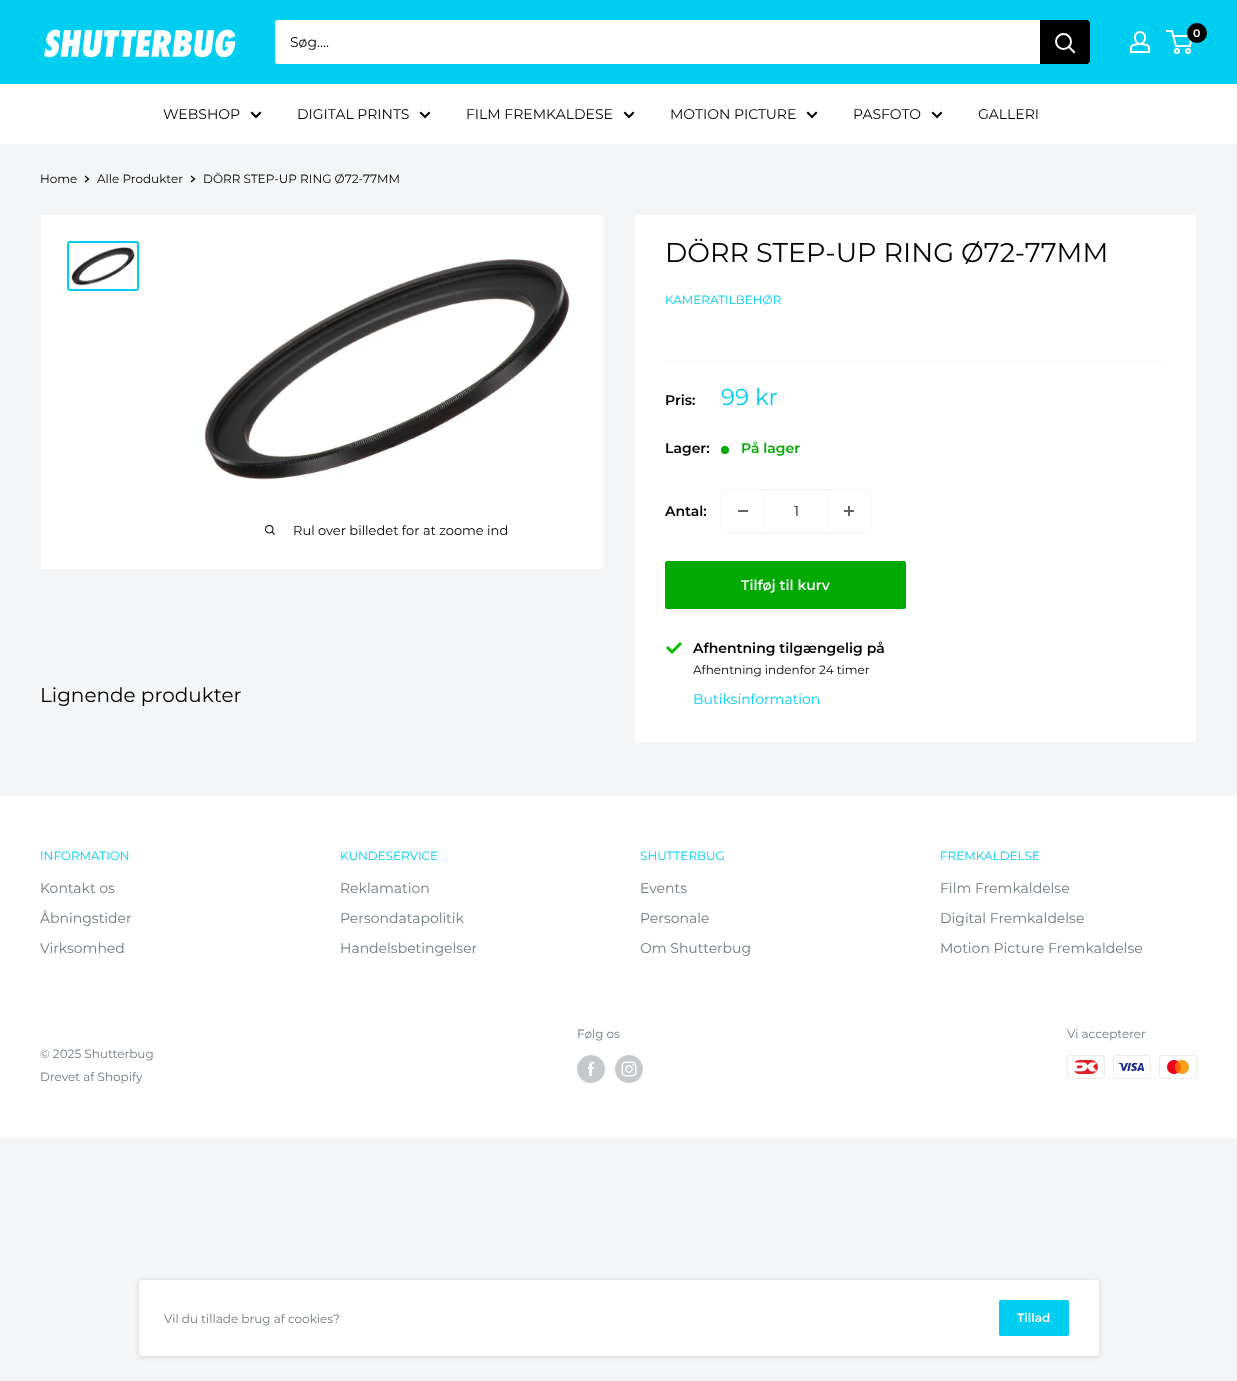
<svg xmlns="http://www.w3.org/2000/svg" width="1237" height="1381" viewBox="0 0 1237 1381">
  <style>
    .t1 { font: 600 11px Montserrat; fill: #fff; }
    .t2 { font: 14px Montserrat; fill: #000; }
    .t3 { font: 12px Montserrat; fill: #000; }
    .t4 { font: 13px Montserrat; fill: #000; }
    .t5 { font: 27px Montserrat; fill: #000; }
    .t6 { font: 12px Montserrat; fill: #00cef0; }
    .t7 { font: 600 14px Montserrat; fill: #000; }
    .t8 { font: 23px Montserrat; fill: #00cef0; }
    .t9 { font: 600 14px Montserrat; fill: #0a0; }
    .t10 { font: 600 14px Montserrat; fill: #f3f5f6; }
    .t11 { font: 14px Montserrat; fill: #00cef0; }
    .t12 { font: 20px Montserrat; fill: #000; }
    .t13 { font: 14px Montserrat; fill: #6e797f; }
    .t14 { font: 12px Montserrat; fill: #6e797f; }
    .t15 { font: 600 12px Montserrat; fill: #fff; }
  </style>
  <rect width="100%" height="100%" fill="#f3f5f6"/>
  <rect x="0" y="0" width="1237" height="84" fill="#00cef0"/>
  <image x="44" y="29" width="192" height="29" href="images/1.png"/>
  <image x="1130" y="31" width="20" height="22" href="images/2.png"/>
  <circle cx="1177" cy="51" r="2" fill="none" stroke="#fff" stroke-width="2"/>
  <circle cx="1188" cy="51" r="2" fill="none" stroke="#fff" stroke-width="2"/>
  <path d="M1173.5 36H1191.5L1190 46H1176L1172 31H1166" fill="none" stroke="#fff" stroke-width="2"/>
  <circle cx="1197" cy="33" r="10" fill="#000"/>
  <text x="1193" y="37" class="t1">0</text>
  <rect x="275" y="20" width="815" height="44" rx="3" fill="#fff"/>
  <text x="290" y="47" class="t2">Søg....</text>
  <path d="M1040 20H1087C1088.5 20 1090 21.5 1090 23V61C1090 62.5 1088.5 64 1087 64H1040Z" fill="#000"/>
  <path d="M1074 52L1069 47" fill="none" stroke="#fff" stroke-width="2" stroke-linecap="square"/>
  <circle cx="1063.5" cy="41.5" r="7.5" fill="none" stroke="#fff" stroke-width="2"/>
  <rect x="0" y="84" width="1237" height="60" fill="#fff"/>
  <text x="163" y="119" class="t2">WEBSHOP</text>
  <path d="M260 113L256 117L252 113" fill="none" stroke="#000" stroke-width="2" stroke-linecap="square"/>
  <text x="297" y="119" class="t2">DIGITAL PRINTS</text>
  <path d="M429 113L425 117L421 113" fill="none" stroke="#000" stroke-width="2" stroke-linecap="square"/>
  <text x="466" y="119" class="t2">FILM FREMKALDESE</text>
  <path d="M633 113L629 117L625 113" fill="none" stroke="#000" stroke-width="2" stroke-linecap="square"/>
  <text x="670" y="119" class="t2">MOTION PICTURE</text>
  <path d="M816 113L812 117L808 113" fill="none" stroke="#000" stroke-width="2" stroke-linecap="square"/>
  <text x="853" y="119" class="t2">PASFOTO</text>
  <path d="M941 113L937 117L933 113" fill="none" stroke="#000" stroke-width="2" stroke-linecap="square"/>
  <text x="978" y="119" class="t2">GALLERI</text>
  <text x="40" y="183" class="t3">Home</text>
  <path d="M85.5 176.5L88.5 179L85.5 181.5" fill="none" stroke="#000" stroke-width="1.3" stroke-linecap="square"/>
  <text x="97" y="183" class="t3">Alle Produkter</text>
  <path d="M191.5 176.5L194.5 179L191.5 181.5" fill="none" stroke="#000" stroke-width="1.3" stroke-linecap="square"/>
  <text x="203" y="183" class="t3">DÖRR STEP-UP RING Ø72-77MM</text>
  <rect x="40.5" y="214.5" width="563" height="355" rx="2.5" fill="#fff" stroke="#f3f5f6"/>
  <rect x="68" y="242" width="70" height="48" rx="2" fill="none" stroke="#00cef0" stroke-width="2"/>
  <image x="71" y="246" width="64" height="40" href="images/3.png"/>
  <image x="204" y="259" width="366" height="222" href="images/4.png"/>
  <image x="265" y="525" width="10" height="10" href="images/5.png"/>
  <text x="293" y="535" class="t4">Rul over billedet for at zoome ind</text>
  <rect x="634.5" y="214.5" width="562" height="528" rx="2.5" fill="#fff" stroke="#f3f5f6"/>
  <text x="665" y="262" class="t5">DÖRR STEP-UP RING Ø72-77MM</text>
  <text x="665" y="304" class="t6">KAMERATILBEHØR</text>
  <rect x="665" y="361" width="501" height="1" fill="#f3f5f6"/>
  <text x="665" y="405" class="t7">Pris:</text>
  <text x="721" y="405" class="t8">99 kr</text>
  <text x="665" y="453" class="t7">Lager:</text>
  <circle cx="725" cy="450" r="4" fill="#0a0"/>
  <text x="741" y="453" class="t9">På lager</text>
  <text x="665" y="516" class="t7">Antal:</text>
  <rect x="721.5" y="489.5" width="149" height="43" rx="2.5" fill="none" stroke="#f3f5f6"/>
  <rect x="738" y="510" width="10" height="2" fill="#666"/>
  <rect x="765" y="490" width="62" height="1" fill="#fafbfb"/>
  <rect x="827" y="490" width="1" height="42" fill="#f3f5f6"/>
  <rect x="764" y="490" width="1" height="42" fill="#f3f5f6"/>
  <text x="794" y="516" class="t2">1</text>
  <image x="844" y="506" width="10" height="10" href="images/6.png"/>
  <rect x="665" y="561" width="241" height="48" rx="2" fill="#0a0"/>
  <text x="741" y="590" class="t10">Tilføj til kurv</text>
  <path d="M667 647L672 652L681 643" fill="none" stroke="#00c200" stroke-width="3"/>
  <text x="693" y="653" class="t7">Afhentning tilgængelig på</text>
  <text x="693" y="674" class="t3">Afhentning indenfor 24 timer</text>
  <text x="693" y="704" class="t11">Butiksinformation</text>
  <text x="40" y="702" class="t12">Lignende produkter</text>
  <rect x="0" y="796" width="1237" height="342" fill="#fff"/>
  <text x="40" y="860" class="t6">INFORMATION</text>
  <text x="40" y="893" class="t13">Kontakt os</text>
  <text x="40" y="923" class="t13">Åbningstider</text>
  <text x="40" y="953" class="t13">Virksomhed</text>
  <text x="340" y="860" class="t6">KUNDESERVICE</text>
  <text x="340" y="893" class="t13">Reklamation</text>
  <text x="340" y="923" class="t13">Persondatapolitik</text>
  <text x="340" y="953" class="t13">Handelsbetingelser</text>
  <text x="640" y="860" class="t6">SHUTTERBUG</text>
  <text x="640" y="893" class="t13">Events</text>
  <text x="640" y="923" class="t13">Personale</text>
  <text x="640" y="953" class="t13">Om Shutterbug</text>
  <text x="940" y="860" class="t6">FREMKALDELSE</text>
  <text x="940" y="893" class="t13">Film Fremkaldelse</text>
  <text x="940" y="923" class="t13">Digital Fremkaldelse</text>
  <text x="940" y="953" class="t13">Motion Picture Fremkaldelse</text>
  <text x="577" y="1038" class="t14">Følg os</text>
  <image x="577" y="1055" width="28" height="28" href="images/7.png"/>
  <image x="615" y="1055" width="28" height="28" href="images/8.png"/>
  <text x="1067" y="1038" class="t14">Vi accepterer</text>
  <image x="1067" y="1055" width="38" height="24" href="images/9.png"/>
  <image x="1113" y="1055" width="38" height="24" href="images/10.png"/>
  <image x="1159" y="1055" width="38" height="24" href="images/11.png"/>
  <text x="40" y="1058" class="t14">© 2025 Shutterbug</text>
  <text x="40" y="1081" class="t14">Drevet af Shopify</text>
  <rect x="138" y="1280" width="962" height="78" rx="4" fill="#0000001a" filter="blur(2px)"/>
  <rect x="139" y="1280" width="960" height="76" rx="3" fill="#fff"/>
  <text x="164" y="1323" class="t14">Vil du tillade brug af cookies?</text>
  <rect x="999" y="1300" width="70" height="36" rx="2" fill="#00cef0"/>
  <text x="1017" y="1322" class="t15">Tillad</text>
</svg>
